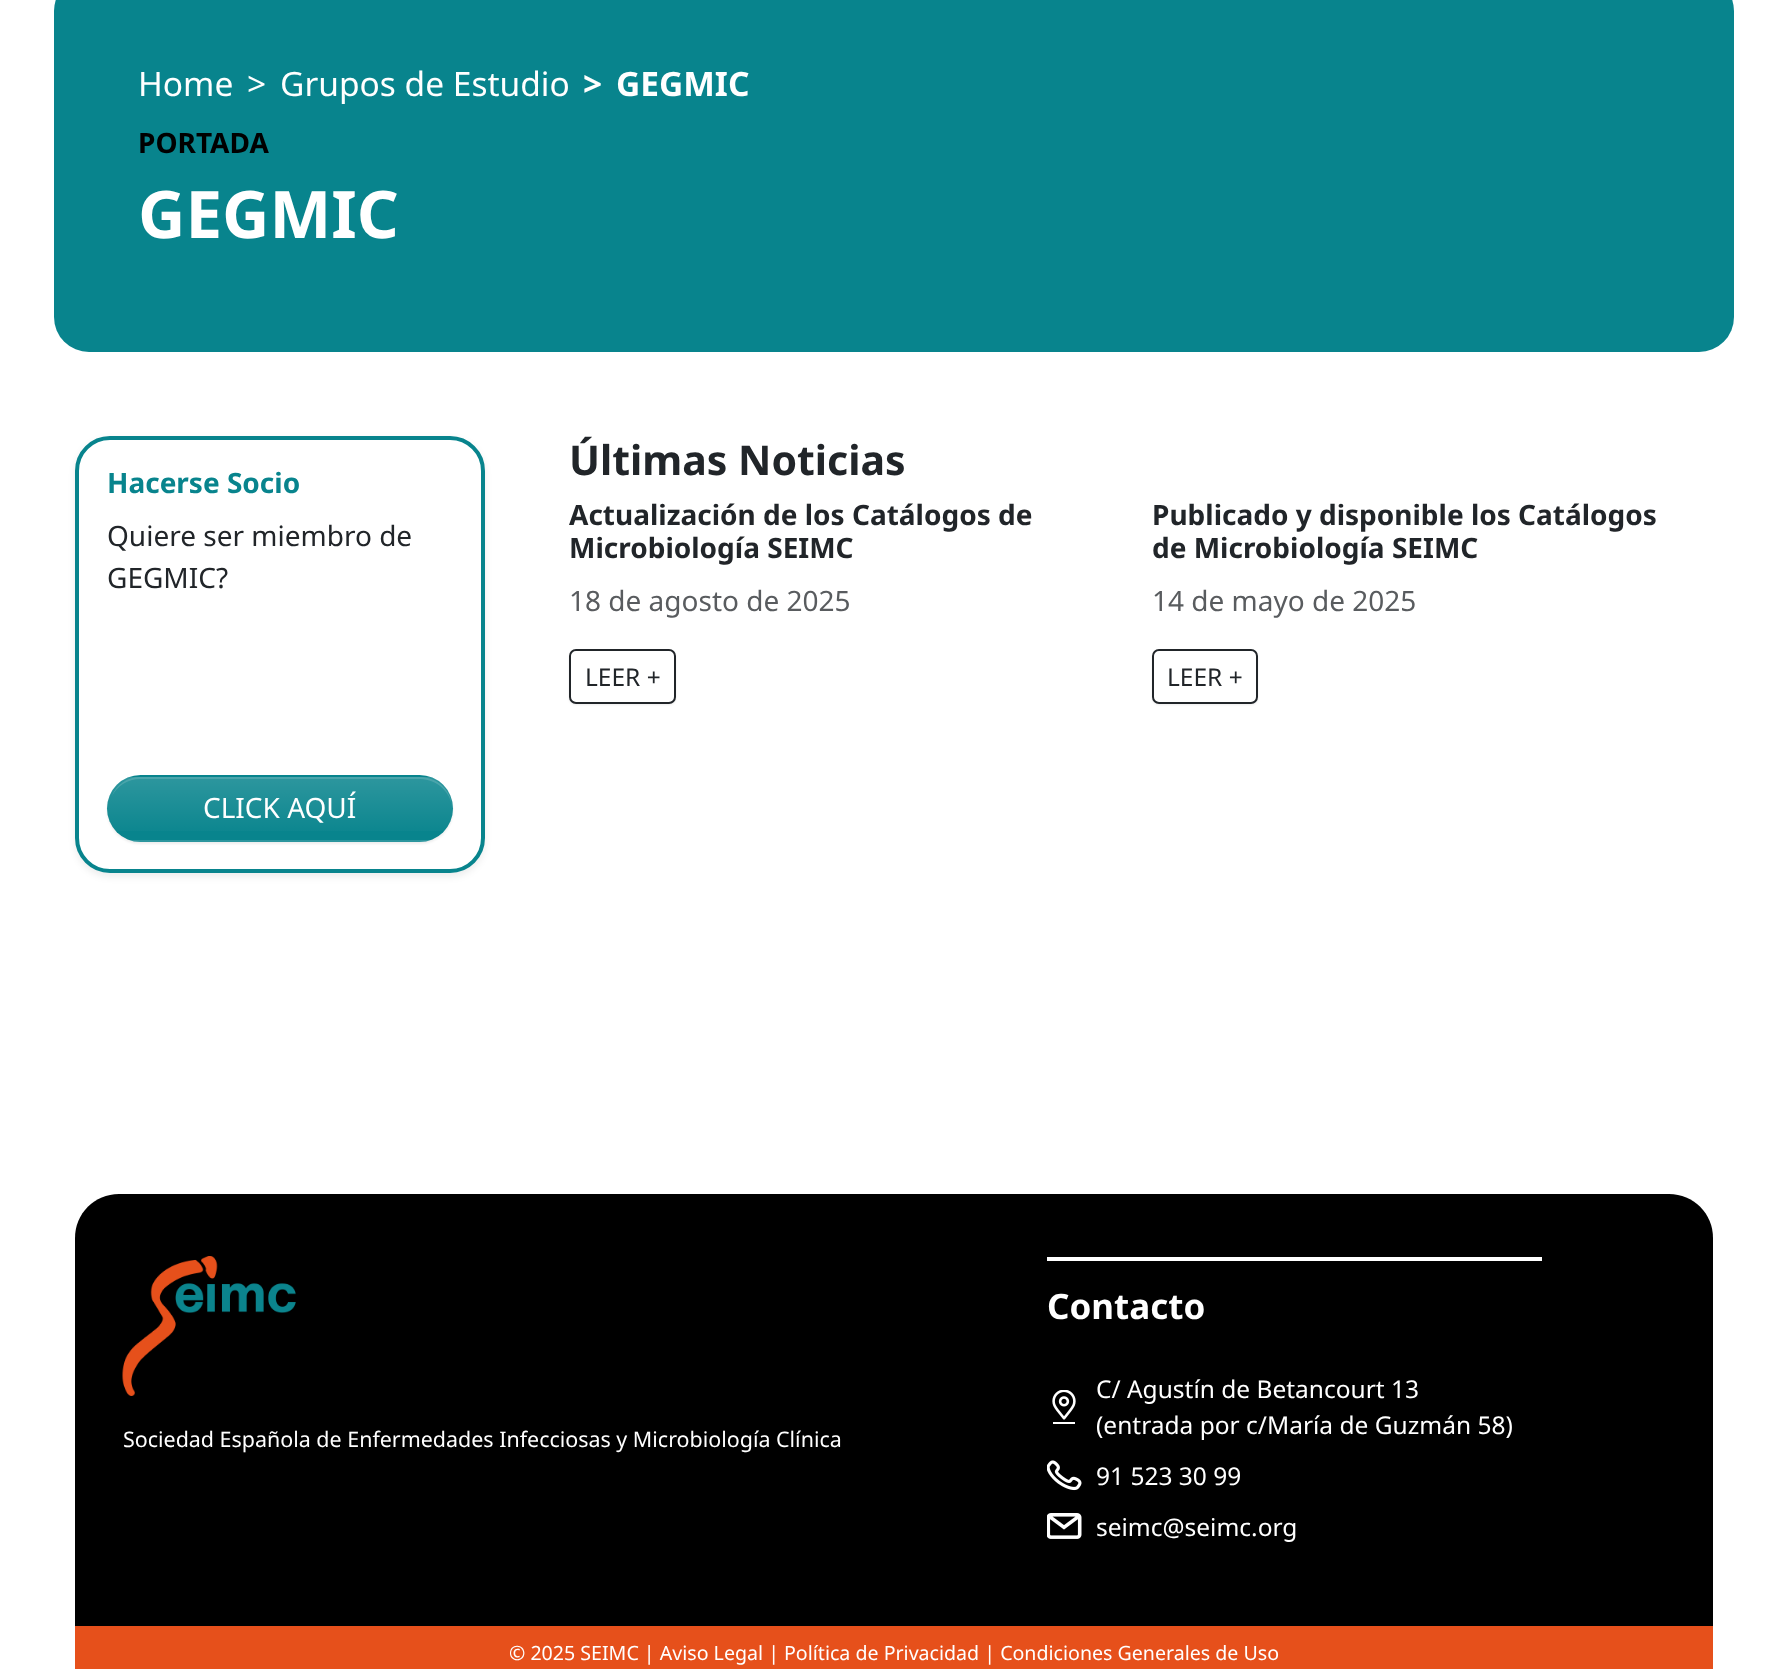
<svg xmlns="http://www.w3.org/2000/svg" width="1787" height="1669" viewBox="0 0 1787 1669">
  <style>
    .t1 { font: 33.5px Noto Sans; fill: #fff; }
    .t2 { font: bold 33.5px Noto Sans; fill: #fff; }
    .t3 { font: bold 28px Noto Sans; fill: #000; }
    .t4 { font: bold 65.5px Noto Sans; fill: #fff; }
    .t5 { font: bold 28px Noto Sans; fill: #08848d; }
    .t6 { font: 28px Noto Sans; fill: #212529; }
    .t7 { font: 28px Noto Sans; fill: #fff; }
    .t8 { font: bold 41px Noto Sans; fill: #212529; }
    .t9 { font: bold 28px Noto Sans; fill: #212529; }
    .t10 { font: 28px Noto Sans; fill: #595c5f; }
    .t11 { font: 24.5px Noto Sans; fill: #212529; }
    .t12 { font: 21.45px Noto Sans; fill: #fff; }
    .t13 { font: bold 35px Noto Sans; fill: #fff; }
    .t14 { font: 24.5px Noto Sans; fill: #fff; }
    .t15 { font: 19.6px Noto Sans; fill: #fff; }
  </style>
  <defs>
    <clipPath id="clip1"><rect x="107" y="775" width="346" height="67" rx="33.5"/></clipPath>
    <linearGradient id="g1" gradientUnits="userSpaceOnUse" x1="280" y1="777" x2="280" y2="840"><stop offset="0" stop-color="#fff" stop-opacity="0.15"/><stop offset="1" stop-color="#fff" stop-opacity="0"/></linearGradient>
    <linearGradient id="g2" gradientUnits="userSpaceOnUse" x1="280" y1="840" x2="280" y2="903"><stop offset="0" stop-color="#fff" stop-opacity="0.15"/><stop offset="1" stop-color="#fff" stop-opacity="0"/></linearGradient>
    <clipPath id="clip2"><path d="M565 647H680V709H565ZM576 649H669C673 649 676 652 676 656V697C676 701 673 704 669 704H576C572 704 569 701 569 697V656C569 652 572 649 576 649Z" clip-rule="evenodd"/></clipPath>
    <clipPath id="clip3"><path d="M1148 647H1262V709H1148ZM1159 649H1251C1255 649 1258 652 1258 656V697C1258 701 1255 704 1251 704H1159C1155 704 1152 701 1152 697V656C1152 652 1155 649 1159 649Z" clip-rule="evenodd"/></clipPath>
  </defs>
  <rect width="100%" height="100%" fill="#fff"/>
  <rect x="54" y="-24" width="1680" height="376" rx="35" fill="#08848d"/>
  <text x="138" y="96" class="t1">Home</text>
  <text x="247" y="96" class="t1">&gt;</text>
  <text x="280" y="96" class="t1">Grupos de Estudio</text>
  <text x="583" y="96" class="t2">&gt;</text>
  <text x="616" y="96" class="t2">GEGMIC</text>
  <text x="138" y="153" class="t3">PORTADA</text>
  <text x="138" y="238" class="t4">GEGMIC</text>
  <rect x="75" y="439" width="410" height="438" rx="35" fill="#00000012" filter="blur(3.5px)"/>
  <rect x="77" y="438" width="406" height="433" rx="33" fill="#fff" stroke="#08848d" stroke-width="4"/>
  <text x="107" y="493" class="t5">Hacerse Socio</text>
  <text x="107" y="546" class="t6">Quiere ser miembro de</text>
  <text x="107" y="588" class="t6">GEGMIC?</text>
  <rect x="107" y="777" width="346" height="67" rx="33.5" fill="#00000012" filter="blur(1px)"/>
  <rect x="107" y="775" width="346" height="67" rx="33.5" fill="#08848d"/>
  <g clip-path="url(#clip1)">
    <rect x="107" y="777" width="346" height="54" fill="url(#g1)"/>
    <rect x="130" y="840" width="300" height="2" fill="url(#g2)"/>
  </g>
  <path d="M140 779H420C437 779 452 793 452 809V808C452 791 438 777 420 777H140C127 777 116 785 112 796C117 786 128 779 140 779Z" fill="#ffffff26"/>
  <text x="203" y="818" class="t7">CLICK AQUÍ</text>
  <text x="569" y="475" class="t8">Últimas Noticias</text>
  <text x="569" y="525" class="t9">Actualización de los Catálogos de</text>
  <text x="569" y="558" class="t9">Microbiología SEIMC</text>
  <text x="569" y="611" class="t10">18 de agosto de 2025</text>
  <g clip-path="url(#clip2)">
    <rect x="569" y="651" width="107" height="54" rx="7" fill="#00000012" filter="blur(1px)"/>
  </g>
  <rect x="570" y="650" width="105" height="53" rx="6" fill="none" stroke="#212529" stroke-width="2"/>
  <text x="585" y="686" class="t11">LEER +</text>
  <text x="1152" y="525" class="t9">Publicado y disponible los Catálogos</text>
  <text x="1152" y="558" class="t9">de Microbiología SEIMC</text>
  <text x="1152" y="611" class="t10">14 de mayo de 2025</text>
  <g clip-path="url(#clip3)">
    <rect x="1152" y="651" width="106" height="54" rx="7" fill="#00000012" filter="blur(1px)"/>
  </g>
  <rect x="1153" y="650" width="104" height="53" rx="6" fill="none" stroke="#212529" stroke-width="2"/>
  <text x="1167" y="686" class="t11">LEER +</text>
  <path d="M119 1194H1669C1693.5 1194 1713 1213.5 1713 1238V1626H75V1238C75 1213.5 94.5 1194 119 1194Z" fill="#000"/>
  <image x="122" y="1256" width="174" height="140" href="images/1.png"/>
  <text x="123" y="1447" class="t12">Sociedad Española de Enfermedades Infecciosas y Microbiología Clínica</text>
  <rect x="1047" y="1257" width="495" height="4" fill="#fff"/>
  <text x="1047" y="1319" class="t13">Contacto</text>
  <image x="1052" y="1390" width="24" height="34" href="images/2.png"/>
  <text x="1096" y="1398" class="t14">C/ Agustín de Betancourt 13</text>
  <text x="1096" y="1434" class="t14">(entrada por c/María de Guzmán 58)</text>
  <image x="1047" y="1460" width="35" height="31" href="images/3.png"/>
  <text x="1096" y="1485" class="t14">91 523 30 99</text>
  <image x="1047" y="1513" width="35" height="26" href="images/4.png"/>
  <text x="1096" y="1536" class="t14">seimc@seimc.org</text>
  <rect x="75" y="1626" width="1638" height="43" fill="#e6501b"/>
  <text x="509" y="1660" class="t15">© 2025 SEIMC | Aviso Legal | Política de Privacidad | Condiciones Generales de Uso</text>
</svg>
